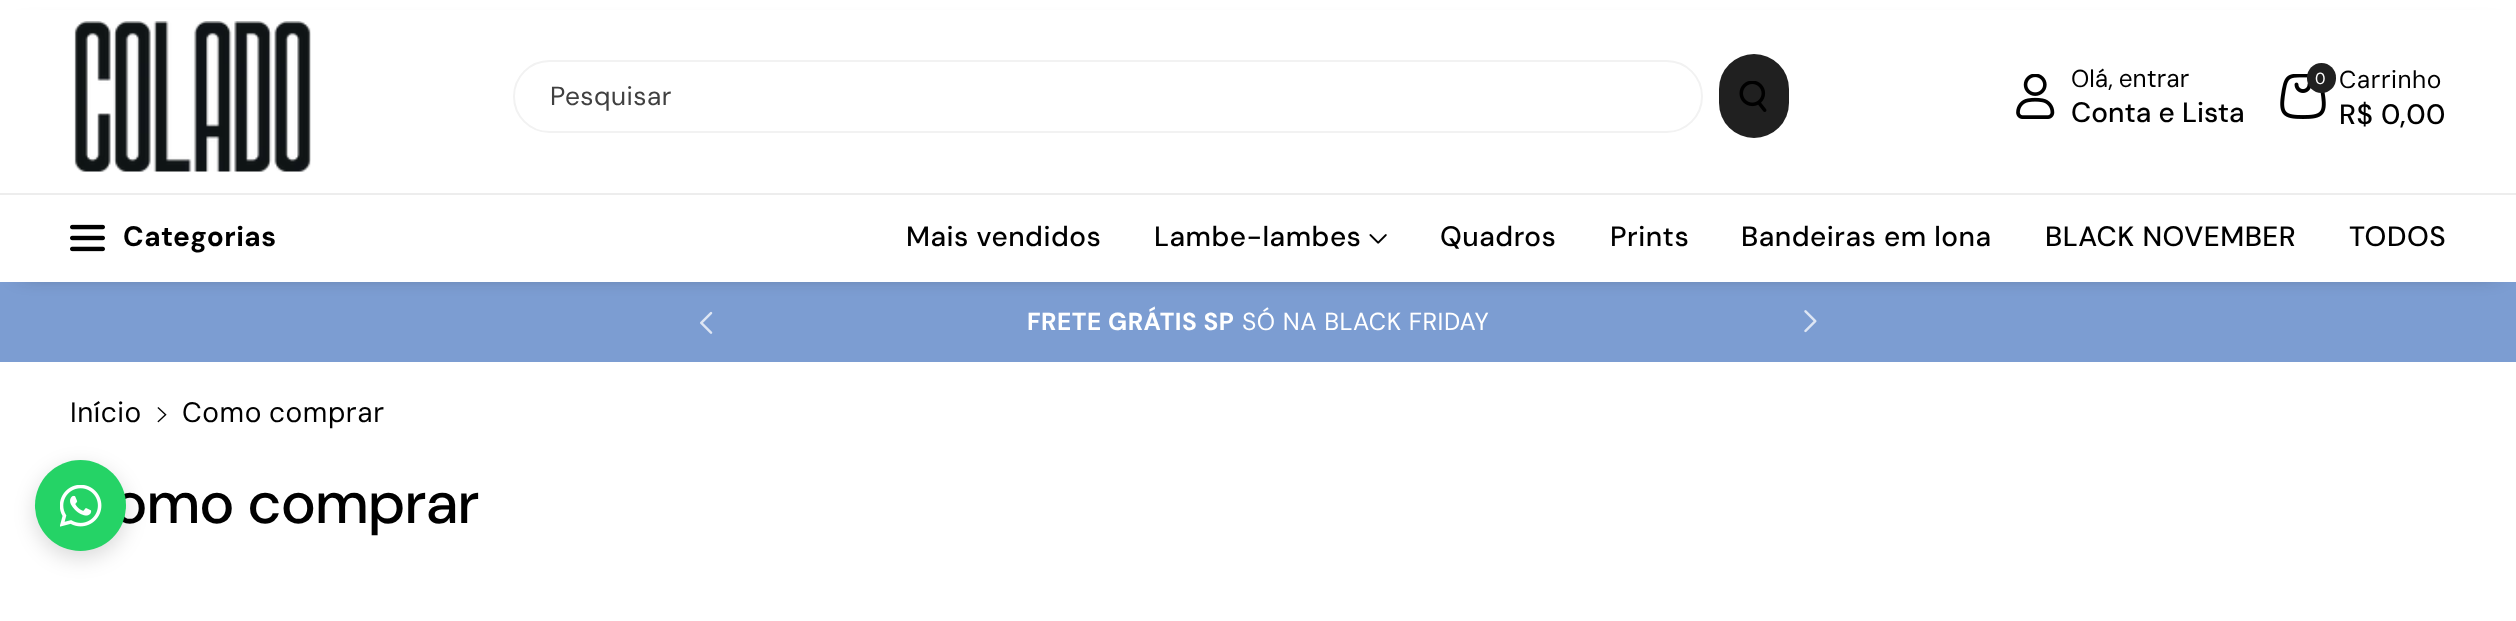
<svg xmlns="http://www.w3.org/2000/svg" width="2516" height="621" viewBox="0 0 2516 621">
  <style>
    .t1 { font: 26.25px 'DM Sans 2'; letter-spacing: 0.5px; fill: #404040; }
    .t2 { font: 24.5px DM Sans; fill: #000; }
    .t3 { font: 500 28px 'DM Sans 2'; fill: #000; }
    .t4 { font: 16px DM Sans; letter-spacing: 0.5px; fill: #fff; }
    .t5 { font: 24.5px DM Sans; letter-spacing: 0.5px; fill: #000; }
    .t6 { font: 500 28px 'DM Sans 2'; letter-spacing: 0.5px; fill: #000; }
    .t7 { font: bold 28px 'DM Sans 2'; letter-spacing: 0.5px; fill: #000; }
    .t8 { font: bold 24.5px DM Sans; letter-spacing: 0.5px; fill: #fff; }
    .t9 { font: 24.5px DM Sans; letter-spacing: 0.5px; fill: #fff; }
    .t10 { font: 28px DM Sans; letter-spacing: 0.5px; fill: #000; }
    .t11 { font: 500 59.5px DM Sans; letter-spacing: 0.5px; fill: #000; }
  </style>
  <rect width="100%" height="100%" fill="#fff"/>
  <rect x="0" y="282" width="2516" height="80" fill="#7c9dd2"/>
  <rect x="21" y="32" width="2475" height="239" fill="#12121299" filter="blur(10.5px)"/>
  <rect x="0" y="10" width="2516" height="272" fill="#fff"/>
  <image x="74" y="21" width="237" height="151" href="images/1.png"/>
  <rect x="514" y="61" width="1188" height="71" rx="35.5" fill="none" stroke="#f2f2f2" stroke-width="2"/>
  <text x="550" y="105" class="t1">Pesquisar</text>
  <rect x="1719" y="54" width="70" height="84" rx="35" fill="#202020"/>
  <image x="1739" y="81" width="28" height="31" href="images/2.png"/>
  <image x="2016" y="74" width="39" height="45" href="images/3.png"/>
  <text x="2071" y="87" word-spacing="-1" class="t2">Olá, entrar</text>
  <text x="2071" y="122" class="t3">Conta e Lista</text>
  <image x="2280" y="74" width="46" height="45" href="images/4.png"/>
  <rect x="2307" y="63" width="29" height="30" rx="14.5" fill="#202020"/>
  <text x="2315" y="84" class="t4">0</text>
  <text x="2339" y="88" class="t5">Carrinho</text>
  <text x="2339" y="124" class="t6">R$ 0,00</text>
  <rect x="0" y="193" width="2516" height="2" fill="#ededed"/>
  <image x="70" y="224" width="35" height="28" href="images/5.png"/>
  <text x="123" y="246" class="t7">Categorias</text>
  <text x="906" y="246" class="t6">Mais vendidos</text>
  <text x="1154" y="246" class="t6">Lambe-lambes</text>
  <image x="1369" y="234" width="18" height="10" href="images/6.png"/>
  <text x="1440" y="246" class="t6">Quadros</text>
  <text x="1610" y="246" class="t6">Prints</text>
  <text x="1741" y="246" class="t6">Bandeiras em lona</text>
  <text x="2045" y="246" class="t6">BLACK NOVEMBER</text>
  <text x="2349" y="246" class="t6">TODOS</text>
  <image x="700" y="311" width="13" height="23" href="images/7.png"/>
  <text x="1027" y="330" class="t8">FRETE GRÁTIS SP</text>
  <text x="1242" y="330" class="t9">SÓ NA BLACK FRIDAY</text>
  <image x="1804" y="310" width="13" height="23" href="images/8.png"/>
  <text x="70" y="422" class="t10">Início</text>
  <image x="157" y="407" width="10" height="16" href="images/9.png"/>
  <text x="182" y="422" word-spacing="-1" class="t10">Como comprar</text>
  <text x="113" y="523" class="t11">omo comprar</text>
  <rect x="35" y="467" width="91" height="91" rx="45.5" fill="#00000026" filter="blur(10.5px)"/>
  <circle cx="80.5" cy="505.5" r="45.5" fill="#25d366"/>
  <image x="60" y="485" width="42" height="42" href="images/10.png"/>
</svg>
